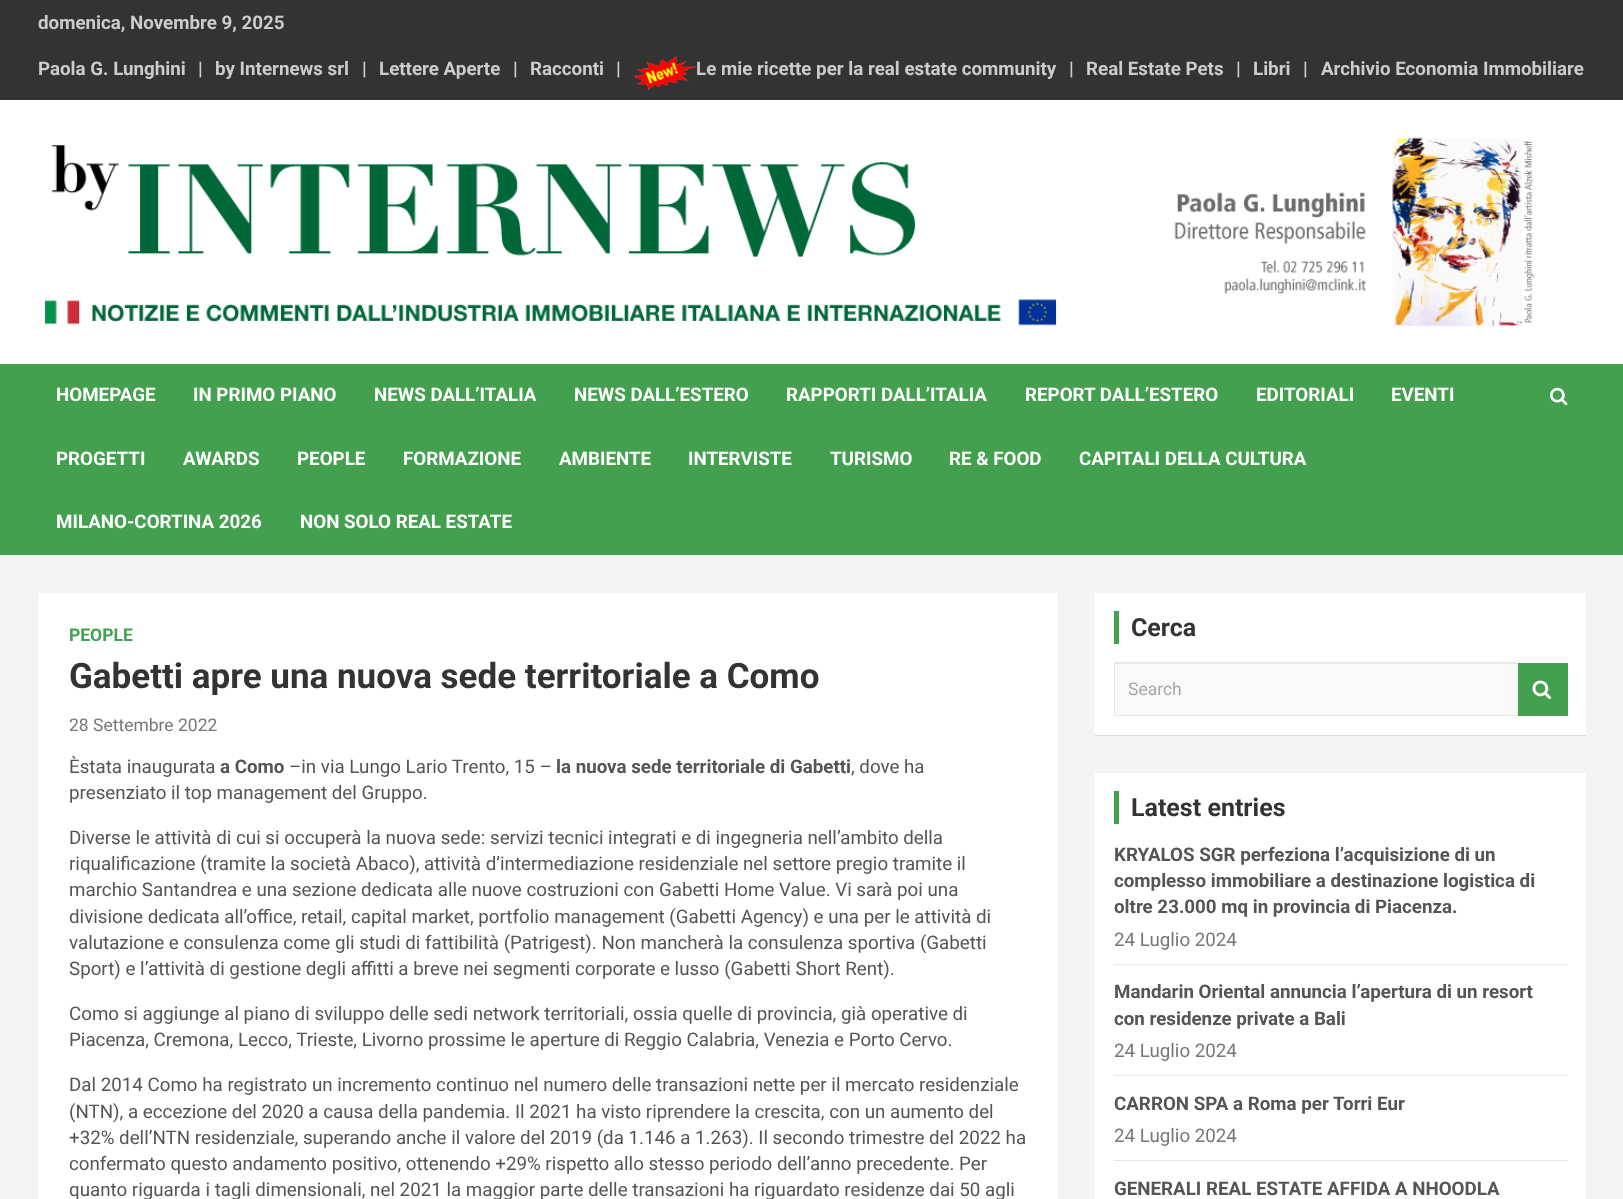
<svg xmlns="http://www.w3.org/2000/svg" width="1623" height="1199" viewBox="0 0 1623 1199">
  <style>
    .t1 { font: bold 18.75px Roboto; fill: #ccc; }
    .t2 { font: bold 18.75px Roboto; fill: #fff; }
    .t3 { font: bold 17.5px Roboto; fill: #43a04f; }
    .t4 { font: bold 35px Roboto; fill: #333; }
    .t5 { font: 17.5px Roboto; fill: #777; }
    .t6 { font: 18.75px Roboto; fill: #555; }
    .t7 { font: bold 18.75px Roboto; fill: #555; }
    .t8 { font: bold 25px Roboto; fill: #333; }
    .t9 { font: 17.5px Roboto; fill: #a7a7a7; }
    .t10 { font: 18.75px Roboto; fill: #777; }
  </style>
  <rect width="100%" height="100%" fill="#f4f4f4"/>
  <rect x="0" y="0" width="1623" height="100" fill="#333"/>
  <text x="38" y="29" class="t1">domenica, Novembre 9, 2025</text>
  <text x="38" y="75" class="t1">Paola G. Lunghini</text>
  <text x="198" y="75" class="t1">|</text>
  <text x="215" y="75" class="t1">by Internews srl</text>
  <text x="362" y="75" class="t1">|</text>
  <text x="379" y="75" class="t1">Lettere Aperte</text>
  <text x="513" y="75" class="t1">|</text>
  <text x="530" y="75" class="t1">Racconti</text>
  <text x="616" y="75" class="t1">|</text>
  <image x="633" y="56" width="64" height="34" href="images/1.png"/>
  <text x="696" y="75" class="t1">Le mie ricette per la real estate community</text>
  <text x="1069" y="75" class="t1">|</text>
  <text x="1086" y="75" class="t1">Real Estate Pets</text>
  <text x="1236" y="75" class="t1">|</text>
  <text x="1253" y="75" class="t1">Libri</text>
  <text x="1303" y="75" class="t1">|</text>
  <text x="1321" y="75" class="t1">Archivio Economia Immobiliare</text>
  <rect x="0" y="100" width="1623" height="264" fill="#fff"/>
  <image x="45" y="137" width="1490" height="190" href="images/2.png"/>
  <rect x="0" y="364" width="1623" height="191" fill="#43a04f"/>
  <text x="56" y="401" class="t2">HOMEPAGE</text>
  <text x="193" y="401" class="t2">IN PRIMO PIANO</text>
  <text x="374" y="401" class="t2">NEWS DALL’ITALIA</text>
  <text x="574" y="401" class="t2">NEWS DALL’ESTERO</text>
  <text x="786" y="401" class="t2">RAPPORTI DALL’ITALIA</text>
  <text x="1025" y="401" class="t2">REPORT DALL’ESTERO</text>
  <text x="1256" y="401" class="t2">EDITORIALI</text>
  <text x="1391" y="401" class="t2">EVENTI</text>
  <text x="56" y="465" class="t2">PROGETTI</text>
  <text x="183" y="465" class="t2">AWARDS</text>
  <text x="297" y="465" class="t2">PEOPLE</text>
  <text x="403" y="465" class="t2">FORMAZIONE</text>
  <text x="559" y="465" class="t2">AMBIENTE</text>
  <text x="688" y="465" class="t2">INTERVISTE</text>
  <text x="830" y="465" class="t2">TURISMO</text>
  <text x="949" y="465" class="t2">RE &amp; FOOD</text>
  <text x="1079" y="465" class="t2">CAPITALI DELLA CULTURA</text>
  <text x="56" y="528" class="t2">MILANO-CORTINA 2026</text>
  <text x="300" y="528" class="t2">NON SOLO REAL ESTATE</text>
  <image x="1550" y="387" width="18" height="19" href="images/3.png"/>
  <rect x="38" y="593" width="1020" height="606" fill="#fff"/>
  <text x="69" y="641" class="t3">PEOPLE</text>
  <text x="69" y="688" class="t4">Gabetti apre una nuova sede territoriale a Como</text>
  <text x="69" y="731" class="t5">28 Settembre 2022</text>
  <text x="69" y="773" class="t6">Èstata inaugurata</text>
  <text x="220" y="773" class="t7">a Como</text>
  <text x="289" y="773" class="t6">–in via Lungo Lario Trento, 15 –</text>
  <text x="556" y="773" class="t7">la nuova sede territoriale di Gabetti</text>
  <text x="851" y="773" class="t6">, dove ha</text>
  <text x="69" y="799" class="t6">presenziato il top management del Gruppo.</text>
  <text x="69" y="844" class="t6">Diverse le attività di cui si occuperà la nuova sede: servizi tecnici integrati e di ingegneria nell’ambito della</text>
  <text x="69" y="870" class="t6">riqualificazione (tramite la società Abaco), attività d’intermediazione residenziale nel settore pregio tramite il</text>
  <text x="69" y="896" class="t6">marchio Santandrea e una sezione dedicata alle nuove costruzioni con Gabetti Home Value. Vi sarà poi una</text>
  <text x="69" y="923" class="t6">divisione dedicata all’office, retail, capital market, portfolio management (Gabetti Agency) e una per le attività di</text>
  <text x="69" y="949" class="t6">valutazione e consulenza come gli studi di fattibilità (Patrigest). Non mancherà la consulenza sportiva (Gabetti</text>
  <text x="69" y="975" class="t6">Sport) e l’attività di gestione degli affitti a breve nei segmenti corporate e lusso (Gabetti Short Rent).</text>
  <text x="69" y="1020" class="t6">Como si aggiunge al piano di sviluppo delle sedi network territoriali, ossia quelle di provincia, già operative di</text>
  <text x="69" y="1046" class="t6">Piacenza, Cremona, Lecco, Trieste, Livorno prossime le aperture di Reggio Calabria, Venezia e Porto Cervo.</text>
  <text x="69" y="1091" class="t6">Dal 2014 Como ha registrato un incremento continuo nel numero delle transazioni nette per il mercato residenziale</text>
  <text x="69" y="1118" class="t6">(NTN), a eccezione del 2020 a causa della pandemia. Il 2021 ha visto riprendere la crescita, con un aumento del</text>
  <text x="69" y="1144" class="t6">+32% dell’NTN residenziale, superando anche il valore del 2019 (da 1.146 a 1.263). Il secondo trimestre del 2022 ha</text>
  <text x="69" y="1170" class="t6">confermato questo andamento positivo, ottenendo +29% rispetto allo stesso periodo dell’anno precedente. Per</text>
  <text x="69" y="1196" class="t6">quanto riguarda i tagli dimensionali, nel 2021 la maggior parte delle transazioni ha riguardato residenze dai 50 agli</text>
  <rect x="1095" y="594" width="491" height="142" fill="#0000001a" filter="blur(0.5px)"/>
  <rect x="1095" y="593" width="491" height="142" fill="#fff"/>
  <rect x="1114" y="611" width="5" height="33" fill="#43a04f"/>
  <text x="1131" y="636" class="t8">Cerca</text>
  <rect x="1115" y="664" width="403" height="51" fill="#f9f9f9"/>
  <path d="M1114 662H1518V664H1115Z" fill="#e8e8e8"/>
  <path d="M1518 716H1114L1115 715H1518Z" fill="#e8e8e8"/>
  <path d="M1114 716V662L1115 664V715Z" fill="#00000017"/>
  <text x="1128" y="695" class="t9">Search</text>
  <rect x="1518" y="663" width="50" height="53" fill="#43a04f"/>
  <image x="1532" y="680" width="20" height="20" href="images/4.png"/>
  <rect x="1095" y="773" width="491" height="426" fill="#fff"/>
  <rect x="1114" y="791" width="5" height="33" fill="#43a04f"/>
  <text x="1131" y="816" class="t8">Latest entries</text>
  <rect x="1114" y="964" width="454" height="1" fill="#e6e6e6"/>
  <text x="1114" y="861" class="t7">KRYALOS SGR perfeziona l’acquisizione di un</text>
  <text x="1114" y="887" class="t7">complesso immobiliare a destinazione logistica di</text>
  <text x="1114" y="913" class="t7">oltre 23.000 mq in provincia di Piacenza.</text>
  <text x="1114" y="946" class="t10">24 Luglio 2024</text>
  <rect x="1114" y="1075" width="454" height="1" fill="#e6e6e6"/>
  <text x="1114" y="998" class="t7">Mandarin Oriental annuncia l’apertura di un resort</text>
  <text x="1114" y="1025" class="t7">con residenze private a Bali</text>
  <text x="1114" y="1057" class="t10">24 Luglio 2024</text>
  <rect x="1114" y="1160" width="454" height="1" fill="#e6e6e6"/>
  <text x="1114" y="1110" class="t7">CARRON SPA a Roma per Torri Eur</text>
  <text x="1114" y="1142" class="t10">24 Luglio 2024</text>
  <text x="1114" y="1195" class="t7">GENERALI REAL ESTATE AFFIDA A NHOODLA</text>
</svg>
